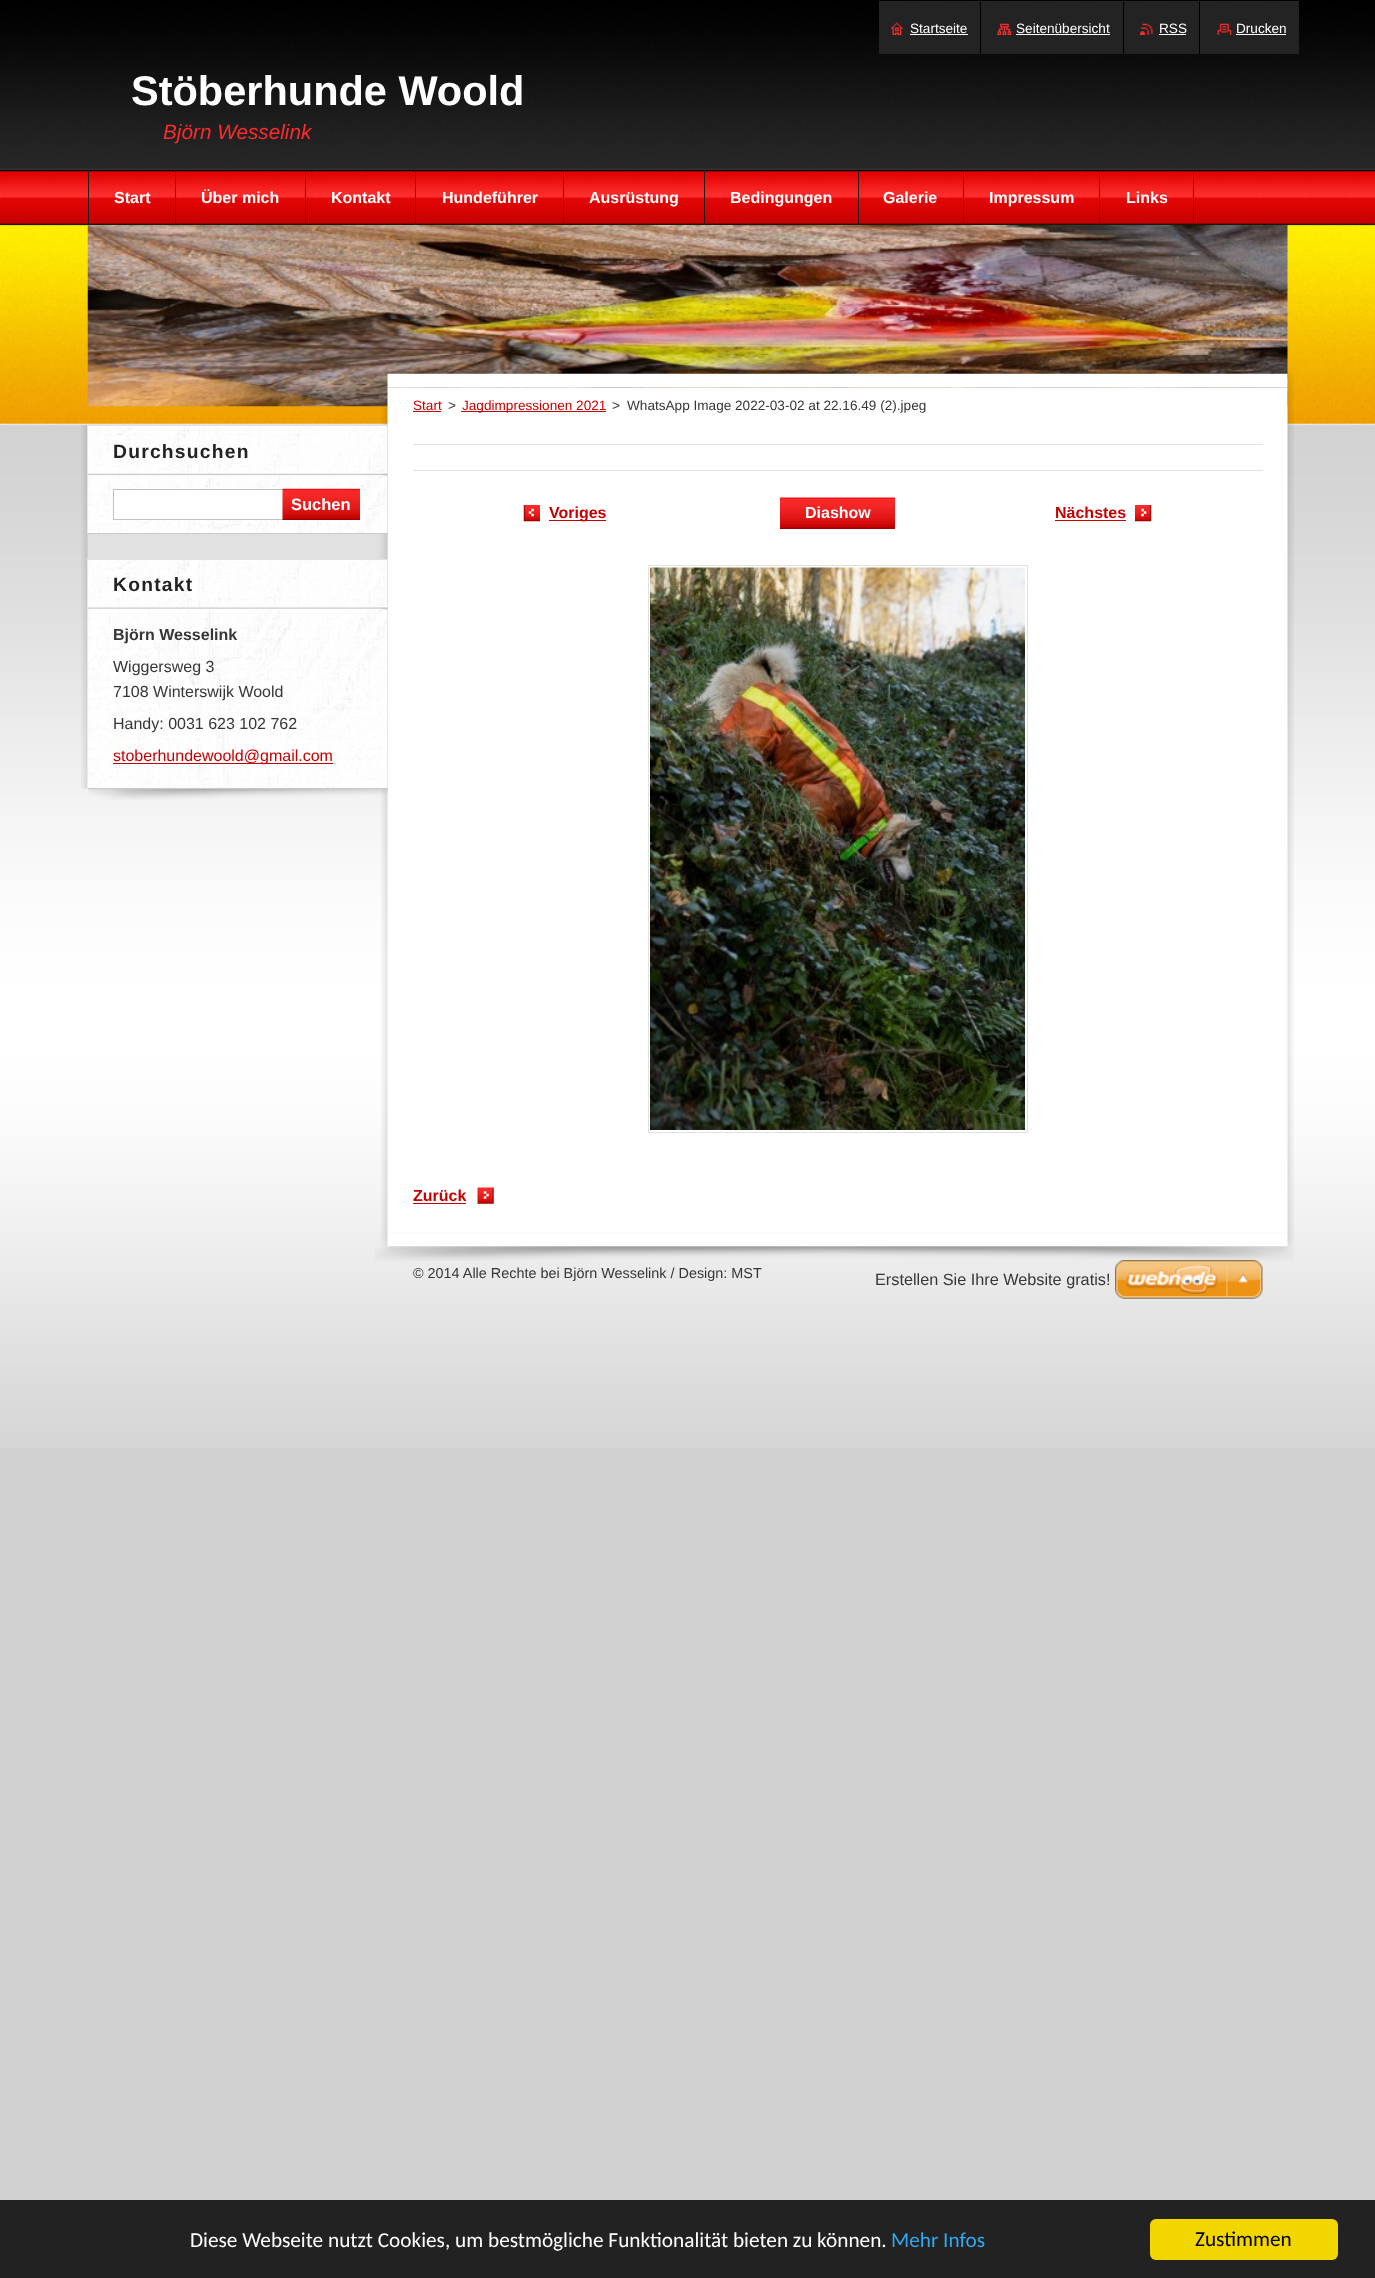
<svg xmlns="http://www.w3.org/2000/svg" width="1375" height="2278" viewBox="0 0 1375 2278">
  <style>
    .t1 { font: 13.6px Liberation Sans; fill: #fff; }
    .t2 { font: bold 41.5px Liberation Sans; fill: #fff; }
    .t3 { font: italic 20.75px Liberation Sans; fill: #fc2c2c; }
    .t4 { font: bold 16px Liberation Sans; fill: #fff; }
    .t5 { font: bold 19.25px Liberation Sans; letter-spacing: 1.25px; fill: #222; }
    .t6 { font: bold 16.5px Liberation Sans; fill: #fff; }
    .t7 { font: bold 16px Liberation Sans; fill: #363636; }
    .t8 { font: 16px Liberation Sans; fill: #363636; }
    .t9 { font: 16px Liberation Sans; fill: #c40000; }
    .t10 { font: 13.6px Liberation Sans; fill: #c40000; }
    .t11 { font: 13.6px Liberation Sans; fill: #363636; }
    .t12 { font: bold 16px Liberation Sans; fill: #c40000; }
    .t13 { font: 14.4px Liberation Sans; fill: #363636; }
    .t14 { font: 16.25px Liberation Sans; fill: #363636; }
    .t15 { font: 21.25px Carlito; fill: #fff; }
    .t16 { font: 21.25px Carlito; fill: #31a8f0; }
    .t17 { font: 21.25px Carlito; fill: #000; }
  </style>
  <rect width="100%" height="100%" fill="#d1d1d1"/>
  <image x="0" y="0" width="1375" height="1448" href="images/1.png"/>
  <rect x="879" y="1" width="420" height="53" fill="#232323"/>
  <image x="891" y="22" width="12" height="13" href="images/2.png"/>
  <text x="910" y="33" class="t1">Startseite</text>
  <rect x="980" y="1" width="1" height="53" fill="#000"/>
  <rect x="910" y="34" width="58" height="1" fill="#fff"/>
  <image x="997" y="23" width="15" height="12" href="images/3.png"/>
  <text x="1016" y="33" class="t1">Seitenübersicht</text>
  <rect x="1123" y="1" width="1" height="53" fill="#000"/>
  <rect x="1016" y="34" width="94" height="1" fill="#fff"/>
  <image x="1140" y="23" width="13" height="12" href="images/4.png"/>
  <text x="1159" y="33" class="t1">RSS</text>
  <rect x="1199" y="1" width="1" height="53" fill="#000"/>
  <rect x="1159" y="34" width="27" height="1" fill="#fff"/>
  <image x="1217" y="23" width="15" height="12" href="images/5.png"/>
  <text x="1236" y="33" class="t1">Drucken</text>
  <rect x="1236" y="34" width="50" height="1" fill="#fff"/>
  <text x="131" y="105" class="t2">Stöberhunde Woold</text>
  <text x="163" y="139" class="t3">Björn Wesselink</text>
  <image x="87" y="225" width="1201" height="182" href="images/6.png"/>
  <rect x="175" y="170" width="1" height="55" fill="#1f1f1f"/>
  <rect x="88" y="170" width="1" height="55" fill="#1f1f1f"/>
  <text x="114" y="203" class="t4">Start</text>
  <rect x="305" y="170" width="1" height="55" fill="#1f1f1f"/>
  <text x="201" y="203" class="t4">Über mich</text>
  <rect x="415" y="170" width="1" height="55" fill="#1f1f1f"/>
  <text x="331" y="203" class="t4">Kontakt</text>
  <rect x="563" y="170" width="1" height="55" fill="#1f1f1f"/>
  <text x="442" y="203" class="t4">Hundeführer</text>
  <rect x="704" y="170" width="1" height="55" fill="#1f1f1f"/>
  <text x="589" y="203" class="t4">Ausrüstung</text>
  <rect x="858" y="170" width="1" height="55" fill="#1f1f1f"/>
  <text x="730" y="203" class="t4">Bedingungen</text>
  <rect x="963" y="170" width="1" height="55" fill="#1f1f1f"/>
  <text x="883" y="203" class="t4">Galerie</text>
  <rect x="1099" y="170" width="1" height="55" fill="#1f1f1f"/>
  <text x="989" y="203" class="t4">Impressum</text>
  <rect x="1193" y="170" width="1" height="55" fill="#1f1f1f"/>
  <text x="1126" y="203" class="t4">Links</text>
  <image x="382" y="367" width="912" height="21" href="images/7.png"/>
  <image x="375" y="1232" width="919" height="29" href="images/8.png"/>
  <image x="381" y="387" width="913" height="846" href="images/9.png"/>
  <image x="88" y="789" width="300" height="11" href="images/10.png"/>
  <image x="81" y="533" width="307" height="26" href="images/15.png"/>
  <image x="81" y="425" width="307" height="109" href="images/11.png"/>
  <image x="87" y="425" width="301" height="109" href="images/12.png"/>
  <rect x="88" y="533" width="300" height="1" fill="#c9c9c9"/>
  <image x="87" y="473" width="301" height="4" href="images/13.png"/>
  <rect x="88" y="425" width="300" height="1" fill="#e1e1e1"/>
  <text x="113" y="458" class="t5">Durchsuchen</text>
  <rect x="113.5" y="489.5" width="170" height="30" fill="#fff" stroke="#c1c1c1"/>
  <image x="282" y="488" width="78" height="32" href="images/14.png"/>
  <text x="291" y="510" class="t6">Suchen</text>
  <image x="81" y="558" width="307" height="231" href="images/16.png"/>
  <image x="87" y="559" width="301" height="230" href="images/17.png"/>
  <rect x="88" y="788" width="300" height="1" fill="#c9c9c9"/>
  <image x="87" y="607" width="301" height="3" href="images/18.png"/>
  <rect x="88" y="559" width="300" height="1" fill="#e1e1e1"/>
  <text x="113" y="591" class="t5">Kontakt</text>
  <text x="113" y="640" class="t7">Björn Wesselink</text>
  <text x="113" y="672" class="t8">Wiggersweg 3</text>
  <text x="113" y="697" class="t8">7108 Winterswijk Woold</text>
  <text x="113" y="729" class="t8">Handy: 0031 623 102 762</text>
  <rect x="113" y="763" width="220" height="1" fill="#c40000"/>
  <text x="113" y="761" class="t9">stoberhundewoold@gmail.com</text>
  <text x="413" y="410" class="t10">Start</text>
  <rect x="413" y="411" width="28" height="1" fill="#c40000"/>
  <text x="448" y="410" class="t11">&gt;</text>
  <rect x="461" y="411" width="145" height="1" fill="#c40000"/>
  <text x="462" y="410" class="t10">Jagdimpressionen 2021</text>
  <text x="612" y="410" class="t11">&gt;</text>
  <text x="627" y="410" class="t11">WhatsApp Image 2022-03-02 at 22.16.49 (2).jpeg</text>
  <rect x="413" y="444" width="850" height="1" fill="#e1e1e1"/>
  <rect x="413" y="470" width="850" height="1" fill="#e1e1e1"/>
  <image x="523" y="505" width="17" height="17" href="images/19.png"/>
  <rect x="549" y="520" width="57" height="1" fill="#c40000"/>
  <text x="549" y="518" class="t12">Voriges</text>
  <image x="780" y="497" width="115" height="31" href="images/20.png"/>
  <text x="805" y="518" class="t4">Diashow</text>
  <rect x="780" y="528" width="115" height="1" fill="#9d0202"/>
  <image x="1135" y="505" width="17" height="17" href="images/21.png"/>
  <text x="1055" y="518" class="t12">Nächstes</text>
  <rect x="1055" y="520" width="71" height="1" fill="#c40000"/>
  <rect x="648.5" y="565.5" width="379" height="567" fill="none" stroke="#e1e1e1"/>
  <image x="650" y="567" width="375" height="563" href="images/22.png"/>
  <image x="477" y="1187" width="17" height="17" href="images/23.png"/>
  <text x="413" y="1201" class="t12">Zurück</text>
  <rect x="413" y="1203" width="53" height="1" fill="#c40000"/>
  <text x="413" y="1278" class="t13">© 2014 Alle Rechte bei Björn Wesselink / Design: MST</text>
  <text x="875" y="1285" class="t14">Erstellen Sie Ihre Website gratis!</text>
  <image x="1115" y="1260" width="148" height="39" href="images/24.png"/>
  <rect x="0" y="2200" width="1375" height="78" fill="#222"/>
  <text x="190" y="2247" class="t15">Diese Webseite nutzt Cookies, um bestmögliche Funktionalität bieten zu können.</text>
  <text x="891" y="2247" class="t16">Mehr Infos</text>
  <rect x="1150" y="2219" width="188" height="41" rx="6" fill="#f1d600"/>
  <text x="1195" y="2246" class="t17">Zustimmen</text>
</svg>
